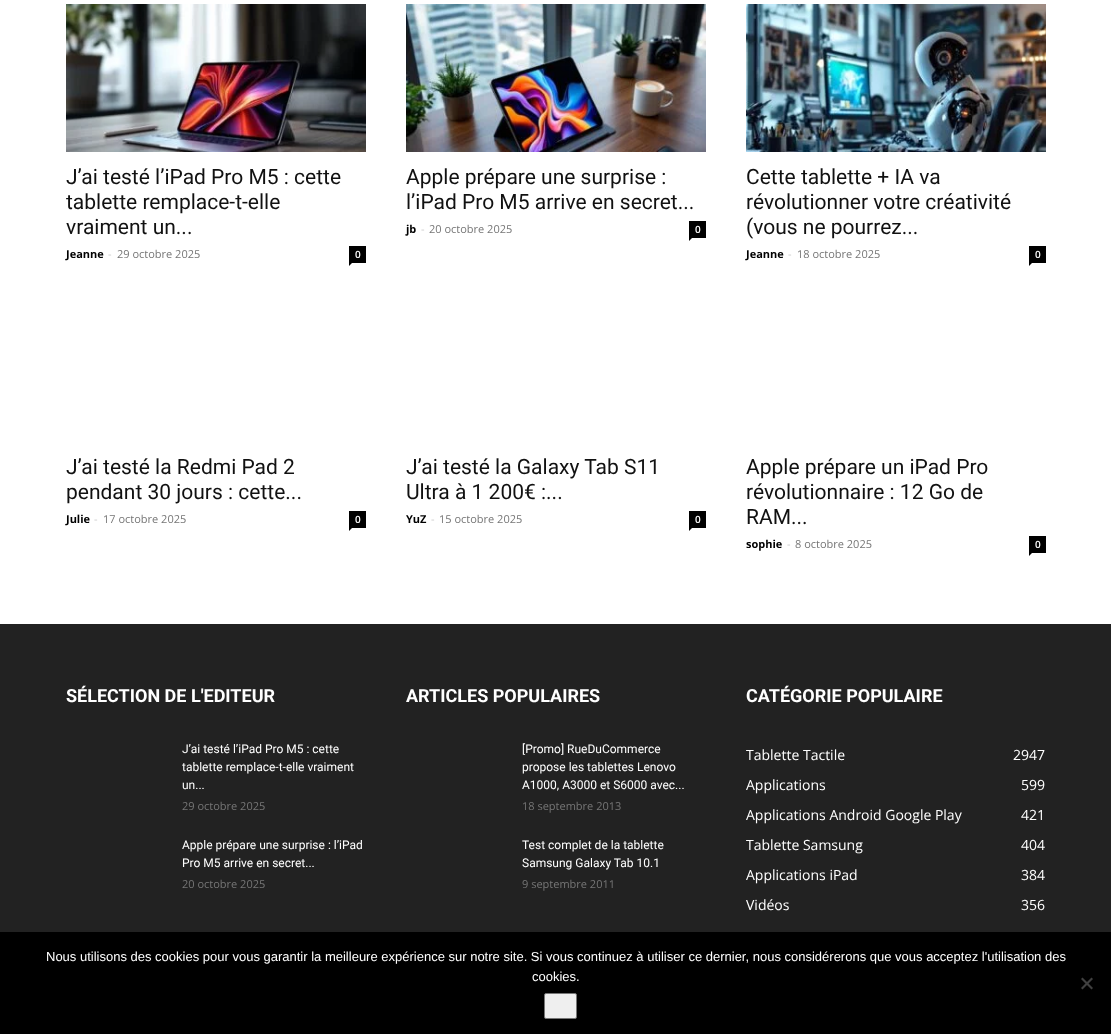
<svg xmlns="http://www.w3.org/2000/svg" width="1111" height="1034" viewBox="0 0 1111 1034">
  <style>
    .t1 { font: 21px Roboto; fill: #111; }
    .t2 { font: bold 11px Open Sans; fill: #000; }
    .t3 { font: 11px Open Sans; fill: #ccc; }
    .t4 { font: 11px Open Sans; fill: #767676; }
    .t5 { font: 600 10px Open Sans; fill: #fff; }
    .t6 { font: bold 18px Roboto; fill: #fff; }
    .t7 { font: 12px Roboto; fill: #fff; }
    .t8 { font: 14px Open Sans; fill: #fff; }
    .t9 { font: 13px Liberation Sans; fill: #fff; }
  </style>
  <rect width="100%" height="100%" fill="#fff"/>
  <image x="66" y="4" width="300" height="148" href="images/1.png"/>
  <text x="66" y="184" class="t1">J’ai testé l’iPad Pro M5 : cette</text>
  <text x="66" y="209" class="t1">tablette remplace-t-elle</text>
  <text x="66" y="234" class="t1">vraiment un...</text>
  <text x="66" y="258" class="t2">Jeanne</text>
  <text x="108" y="258" class="t3">-</text>
  <text x="117" y="258" class="t4">29 octobre 2025</text>
  <rect x="349" y="246" width="17" height="17" fill="#000"/>
  <text x="355" y="258" class="t5">0</text>
  <path d="M349 263H352L349 266Z" fill="#000"/>
  <image x="406" y="4" width="300" height="148" href="images/2.png"/>
  <text x="406" y="184" class="t1">Apple prépare une surprise :</text>
  <text x="406" y="209" class="t1">l’iPad Pro M5 arrive en secret...</text>
  <text x="406" y="233" class="t2">jb</text>
  <text x="421" y="233" class="t3">-</text>
  <text x="429" y="233" class="t4">20 octobre 2025</text>
  <rect x="689" y="221" width="17" height="17" fill="#000"/>
  <text x="695" y="233" class="t5">0</text>
  <path d="M689 238H692L689 241Z" fill="#000"/>
  <image x="746" y="4" width="300" height="148" href="images/3.png"/>
  <text x="746" y="184" class="t1">Cette tablette + IA va</text>
  <text x="746" y="209" class="t1">révolutionner votre créativité</text>
  <text x="746" y="234" class="t1">(vous ne pourrez...</text>
  <text x="746" y="258" class="t2">Jeanne</text>
  <text x="788" y="258" class="t3">-</text>
  <text x="797" y="258" class="t4">18 octobre 2025</text>
  <rect x="1029" y="246" width="17" height="17" fill="#000"/>
  <text x="1035" y="258" class="t5">0</text>
  <path d="M1029 263H1032L1029 266Z" fill="#000"/>
  <text x="66" y="474" class="t1">J’ai testé la Redmi Pad 2</text>
  <text x="66" y="499" class="t1">pendant 30 jours : cette...</text>
  <text x="66" y="523" class="t2">Julie</text>
  <text x="94" y="523" class="t3">-</text>
  <text x="103" y="523" class="t4">17 octobre 2025</text>
  <rect x="349" y="511" width="17" height="17" fill="#000"/>
  <text x="355" y="523" class="t5">0</text>
  <path d="M349 528H352L349 531Z" fill="#000"/>
  <text x="406" y="474" class="t1">J’ai testé la Galaxy Tab S11</text>
  <text x="406" y="499" class="t1">Ultra à 1 200€ :...</text>
  <text x="406" y="523" class="t2">YuZ</text>
  <text x="431" y="523" class="t3">-</text>
  <text x="439" y="523" class="t4">15 octobre 2025</text>
  <rect x="689" y="511" width="17" height="17" fill="#000"/>
  <text x="695" y="523" class="t5">0</text>
  <path d="M689 528H692L689 531Z" fill="#000"/>
  <text x="746" y="474" class="t1">Apple prépare un iPad Pro</text>
  <text x="746" y="499" class="t1">révolutionnaire : 12 Go de</text>
  <text x="746" y="524" class="t1">RAM...</text>
  <text x="746" y="548" class="t2">sophie</text>
  <text x="787" y="548" class="t3">-</text>
  <text x="795" y="548" class="t4">8 octobre 2025</text>
  <rect x="1029" y="536" width="17" height="17" fill="#000"/>
  <text x="1035" y="548" class="t5">0</text>
  <path d="M1029 553H1032L1029 556Z" fill="#000"/>
  <rect x="0" y="624" width="1111" height="308" fill="#222"/>
  <text x="66" y="702" class="t6">SÉLECTION DE L'EDITEUR</text>
  <text x="182" y="753" class="t7">J’ai testé l’iPad Pro M5 : cette</text>
  <text x="182" y="771" class="t7">tablette remplace-t-elle vraiment</text>
  <text x="182" y="789" class="t7">un...</text>
  <text x="182" y="810" class="t4">29 octobre 2025</text>
  <text x="182" y="849" class="t7">Apple prépare une surprise : l’iPad</text>
  <text x="182" y="867" class="t7">Pro M5 arrive en secret...</text>
  <text x="182" y="888" class="t4">20 octobre 2025</text>
  <text x="406" y="702" class="t6">ARTICLES POPULAIRES</text>
  <text x="522" y="753" class="t7">[Promo] RueDuCommerce</text>
  <text x="522" y="771" class="t7">propose les tablettes Lenovo</text>
  <text x="522" y="789" class="t7">A1000, A3000 et S6000 avec...</text>
  <text x="522" y="810" class="t4">18 septembre 2013</text>
  <text x="522" y="849" class="t7">Test complet de la tablette</text>
  <text x="522" y="867" class="t7">Samsung Galaxy Tab 10.1</text>
  <text x="522" y="888" class="t4">9 septembre 2011</text>
  <text x="746" y="702" class="t6">CATÉGORIE POPULAIRE</text>
  <text x="746" y="760" class="t8">Tablette Tactile</text>
  <text x="1013" y="760" class="t8">2947</text>
  <text x="746" y="790" class="t8">Applications</text>
  <text x="1021" y="790" class="t8">599</text>
  <text x="746" y="820" class="t8">Applications Android Google Play</text>
  <text x="1021" y="820" class="t8">421</text>
  <text x="746" y="850" class="t8">Tablette Samsung</text>
  <text x="1021" y="850" class="t8">404</text>
  <text x="746" y="880" class="t8">Applications iPad</text>
  <text x="1021" y="880" class="t8">384</text>
  <text x="746" y="910" class="t8">Vidéos</text>
  <text x="1021" y="910" class="t8">356</text>
  <rect x="0" y="932" width="1111" height="102" fill="#000"/>
  <text x="46" y="961" class="t9">Nous utilisons des cookies pour vous garantir la meilleure expérience sur notre site. Si vous continuez à utiliser ce dernier, nous considérerons que vous acceptez l'utilisation des</text>
  <text x="532" y="981" class="t9">cookies.</text>
  <path d="M1091.5 977.5L1093 979L1082.5 989.5L1081 988Z" fill="#404040"/>
  <path d="M1081 979L1082.5 977.5L1093 988L1091.5 989.5Z" fill="#404040"/>
  <rect x="544.5" y="993.5" width="32" height="25" rx="1.5" fill="#efefef" stroke="#767676"/>
</svg>
